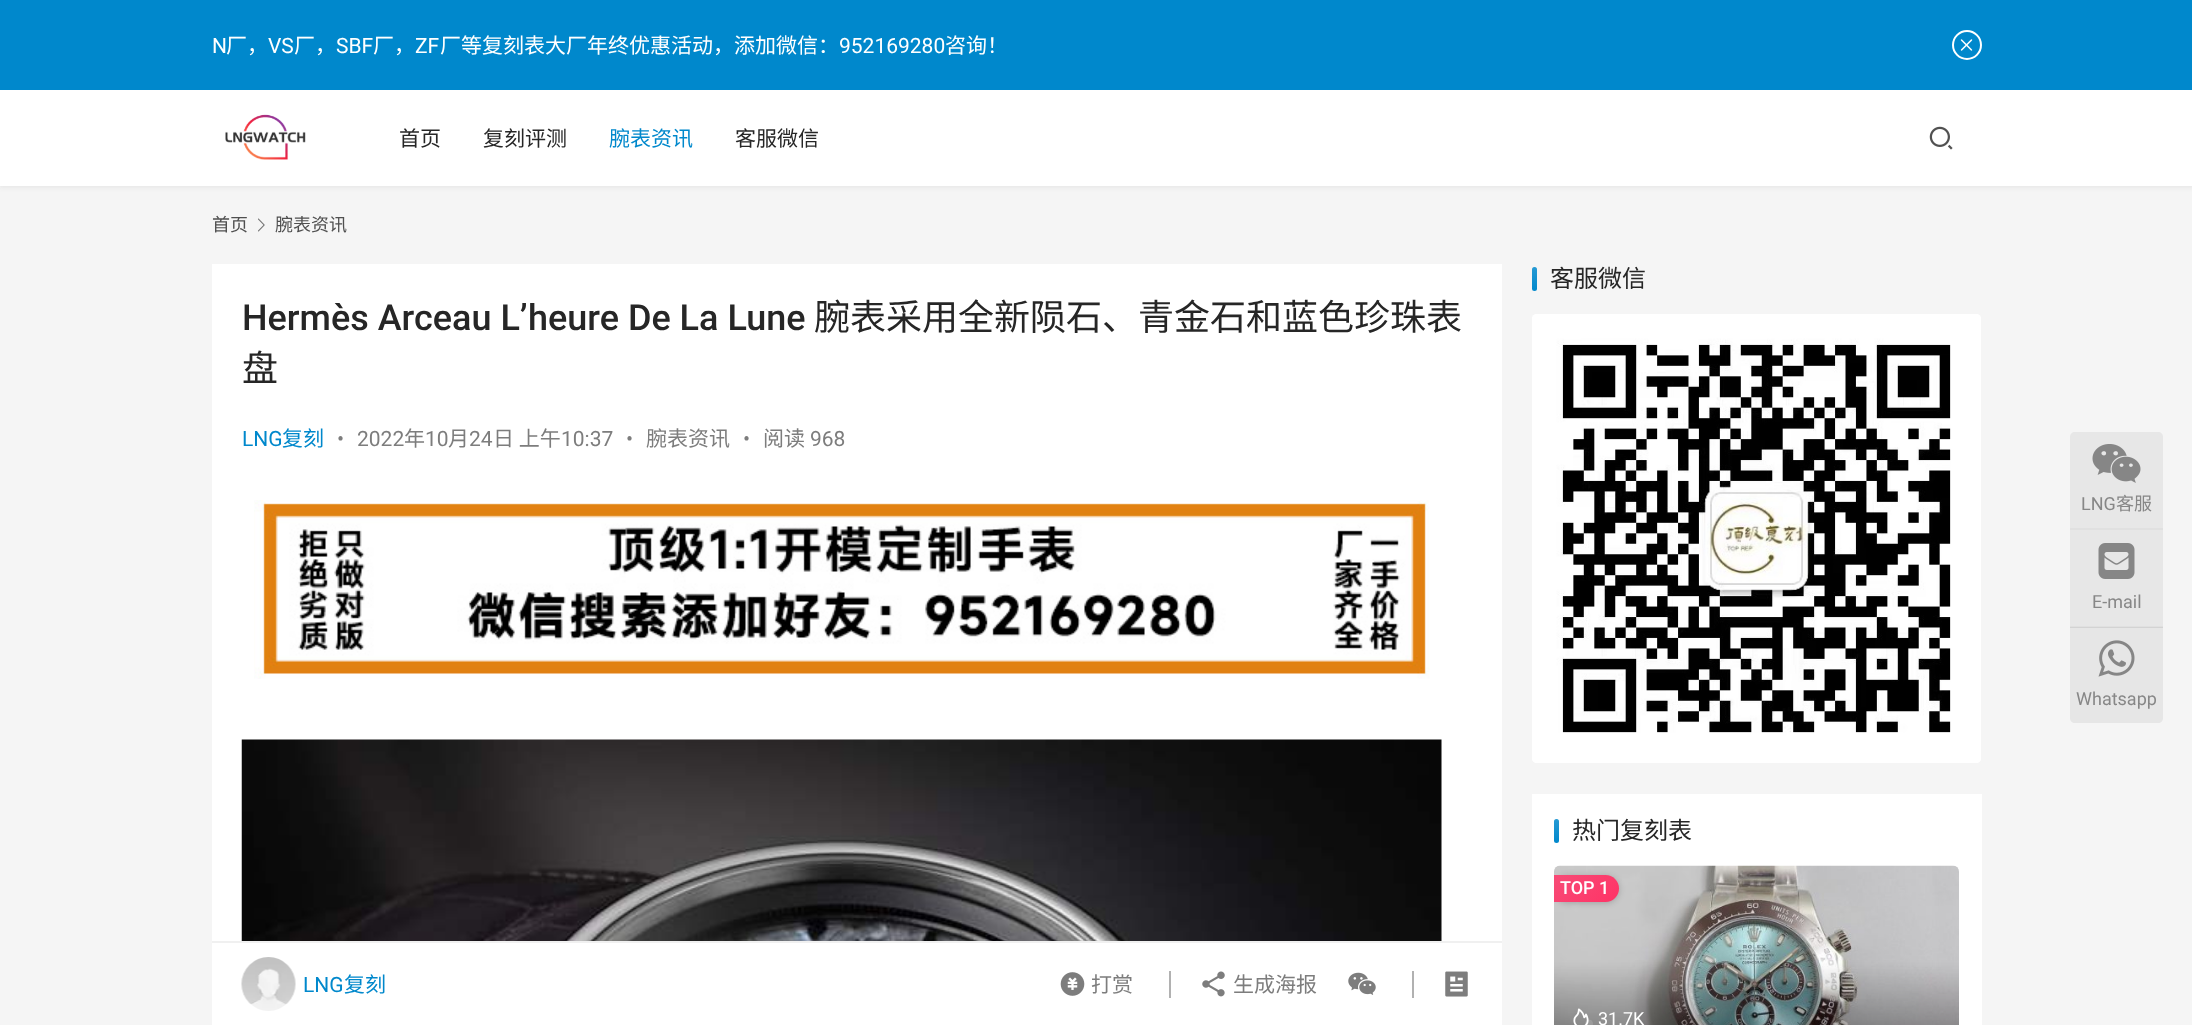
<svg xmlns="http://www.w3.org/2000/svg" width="2192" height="1025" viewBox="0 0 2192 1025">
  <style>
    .t1 { font: 21px Roboto; fill: #fff; }
    .t2 { font: 21px Noto Sans CJK SC; fill: #fff; }
    .t3 { font: 21px Noto Sans CJK SC; fill: #262626; }
    .t4 { font: 21px Noto Sans CJK SC; fill: #08c; }
    .t5 { font: 18px Noto Sans CJK SC; fill: #4f4f4f; }
    .t6 { font: 500 36px Roboto; fill: #262626; }
    .t7 { font: 36px Noto Sans CJK SC; fill: #262626; }
    .t8 { font: 21px Roboto; fill: #08c; }
    .t9 { font: 21px Roboto; fill: #7d7d7d; }
    .t10 { font: 21px Noto Sans CJK SC; fill: #7d7d7d; }
    .t11 { font: 24px Noto Sans CJK SC; fill: #262626; }
    .t12 { font: 500 18px Roboto; fill: #fff; }
    .t13 { font: 18px Roboto; fill: #fff; }
    .t14 { font: 18px Roboto; fill: #878787; }
    .t15 { font: 18px Noto Sans CJK SC; fill: #878787; }
  </style>
  <defs>
    <linearGradient id="g1" gradientUnits="userSpaceOnUse" x1="1534" y1="267" x2="1534" y2="291"><stop offset="0" stop-color="#fff" stop-opacity="0.15"/><stop offset="1" stop-color="#fff" stop-opacity="0"/></linearGradient>
    <linearGradient id="g2" gradientUnits="userSpaceOnUse" x1="1556" y1="819" x2="1556" y2="843"><stop offset="0" stop-color="#fff" stop-opacity="0.15"/><stop offset="1" stop-color="#fff" stop-opacity="0"/></linearGradient>
    <clipPath id="clip1"><rect x="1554" y="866" width="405" height="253" rx="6"/></clipPath>
    <linearGradient id="g3" gradientUnits="userSpaceOnUse" x1="1563" y1="865" x2="1609" y2="911"><stop offset="0.1" stop-color="#f84975"/><stop offset="1" stop-color="#f36"/></linearGradient>
  </defs>
  <rect width="100%" height="100%" fill="#f5f5f5"/>
  <rect x="-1" y="89" width="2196" height="99" fill="#2626260f" filter="blur(2px)"/>
  <rect x="0" y="0" width="2192" height="90" fill="#08c"/>
  <text x="212" y="53" class="t1">N</text>
  <text x="226" y="53" class="t2">厂，</text>
  <text x="268" y="53" class="t1">VS</text>
  <text x="294" y="53" class="t2">厂，</text>
  <text x="336" y="53" class="t1">SBF</text>
  <text x="373" y="53" class="t2">厂，</text>
  <text x="415" y="53" class="t1">ZF</text>
  <text x="440" y="53" class="t2">厂等复刻表大厂年终优惠活动，添加微信：</text>
  <text x="839" y="53" class="t1">952169280</text>
  <text x="945" y="53" class="t2">咨询！</text>
  <circle cx="1967" cy="45" r="14" fill="none" stroke="#fff" stroke-width="2"/>
  <image x="1960" y="39" width="13" height="12" href="images/1.png"/>
  <rect x="0" y="90" width="2192" height="96" fill="#fff"/>
  <image x="225" y="114" width="81" height="46" href="images/2.png"/>
  <text x="399" y="146" class="t3">首页</text>
  <text x="483" y="146" class="t3">复刻评测</text>
  <text x="609" y="146" class="t4">腕表资讯</text>
  <text x="735" y="146" class="t3">客服微信</text>
  <image x="1929" y="126" width="24" height="24" href="images/3.png"/>
  <text x="212" y="231" class="t5">首页</text>
  <image x="258" y="218" width="7" height="14" href="images/4.png"/>
  <text x="275" y="231" class="t5">腕表资讯</text>
  <rect x="212" y="264" width="1290" height="677" fill="#fff"/>
  <text x="242" y="330" class="t6">Hermѐs Arceau L’heure De La Lune</text>
  <text x="814" y="330" class="t7">腕表采用全新陨石、青金石和蓝色珍珠表</text>
  <text x="242" y="381" class="t7">盘</text>
  <text x="242" y="446" class="t8">LNG</text>
  <text x="282" y="446" class="t4">复刻</text>
  <text x="337" y="446" class="t9">•</text>
  <text x="357" y="446" class="t9">2022</text>
  <text x="404" y="446" class="t10">年</text>
  <text x="425" y="446" class="t9">10</text>
  <text x="448" y="446" class="t10">月</text>
  <text x="469" y="446" class="t9">24</text>
  <text x="493" y="446" class="t10">日 上午</text>
  <text x="561" y="446" class="t9">10:37</text>
  <text x="626" y="446" class="t9">•</text>
  <text x="646" y="446" class="t10">腕表资讯</text>
  <text x="743" y="446" class="t9">•</text>
  <text x="763" y="446" class="t10">阅读</text>
  <text x="810" y="446" class="t9">968</text>
  <image x="254" y="500" width="1176" height="179" href="images/5.png"/>
  <image x="241" y="739" width="1201" height="202" href="images/6.png"/>
  <rect x="212" y="943" width="1290" height="82" fill="#fff"/>
  <rect x="212" y="941" width="1290" height="2" fill="#f0f0f0"/>
  <image x="241" y="957" width="55" height="54" href="images/7.png"/>
  <text x="303" y="992" class="t8">LNG</text>
  <text x="344" y="992" class="t4">复刻</text>
  <image x="1060" y="972" width="25" height="24" href="images/8.png"/>
  <text x="1091" y="992" class="t10">打赏</text>
  <rect x="1169" y="971" width="2" height="27" fill="#b1b1b1"/>
  <image x="1202" y="971" width="23" height="26" href="images/9.png"/>
  <text x="1233" y="992" class="t10">生成海报</text>
  <image x="1348" y="972" width="28" height="23" href="images/10.png"/>
  <rect x="1412" y="971" width="2" height="27" fill="#b1b1b1"/>
  <image x="1445" y="971" width="23" height="26" href="images/11.png"/>
  <rect x="1532" y="267" width="5" height="24" rx="2.5" fill="#08c"/>
  <rect x="1532" y="267" width="5" height="24" rx="2.5" fill="url(#g1)"/>
  <text x="1550" y="287" class="t11">客服微信</text>
  <image x="1532" y="314" width="449" height="449" href="images/12.png"/>
  <rect x="1532" y="794" width="450" height="231" fill="#fff"/>
  <rect x="1554" y="819" width="5" height="24" rx="2.5" fill="#08c"/>
  <rect x="1554" y="819" width="5" height="24" rx="2.5" fill="url(#g2)"/>
  <text x="1572" y="839" class="t11">热门复刻表</text>
  <image x="1554" y="865" width="405" height="160" href="images/13.png"/>
  <g clip-path="url(#clip1)">
    <rect x="1554" y="876" width="65" height="27" rx="13.5" fill="#00000033" filter="blur(3px)"/>
  </g>
  <path d="M1554 875H1605.5C1613 875 1619 881 1619 888.5C1619 896 1613 902 1605.5 902H1554Z" fill="url(#g3)"/>
  <text x="1560" y="894" class="t12">TOP 1</text>
  <image x="1573" y="1008" width="20" height="17" href="images/14.png"/>
  <text x="1598" y="1025" class="t13">31.7K</text>
  <path d="M2075 432H2158C2161 432 2163 434 2163 437V528H2070V437C2070 434 2072 432 2075 432Z" fill="#e7e7e7"/>
  <image x="2092" y="444" width="49" height="39" href="images/15.png"/>
  <text x="2081" y="510" class="t14">LNG</text>
  <text x="2116" y="510" class="t15">客服</text>
  <rect x="2070" y="528" width="93" height="2" fill="#e0e0e0"/>
  <rect x="2070" y="530" width="93" height="96" fill="#e7e7e7"/>
  <image x="2098" y="543" width="37" height="36" href="images/16.png"/>
  <text x="2092" y="608" class="t14">E-mail</text>
  <rect x="2070" y="626" width="93" height="2" fill="#e0e0e0"/>
  <path d="M2070 627H2163V718C2163 721 2161 723 2158 723H2075C2072 723 2070 721 2070 718Z" fill="#26262612"/>
  <image x="2098" y="640" width="37" height="37" href="images/17.png"/>
  <text x="2076" y="705" class="t14">Whatsapp</text>
</svg>
